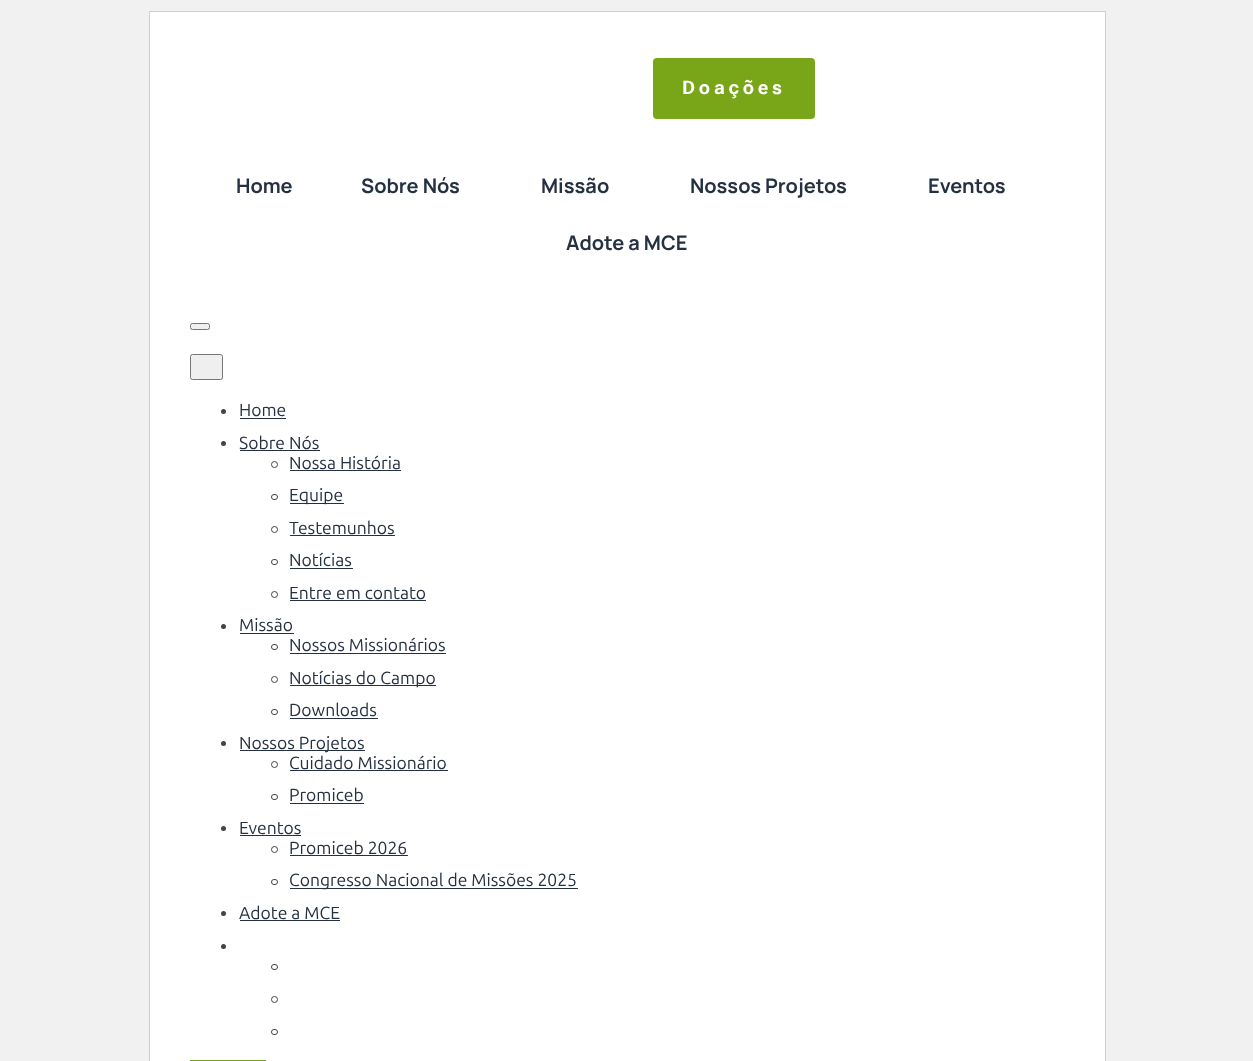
<svg xmlns="http://www.w3.org/2000/svg" width="1253" height="1061" viewBox="0 0 1253 1061">
  <style>
    .t1 { font: bold 18.75px Roboto Flex; letter-spacing: 3.75px; fill: #fff; }
    .t2 { font: bold 20px Manrope; fill: #253041; }
    .t3 { font: 17.5px Ubuntu; fill: #253041; }
  </style>
  <rect width="100%" height="100%" fill="#f1f1f1"/>
  <rect x="149.5" y="11.5" width="956" height="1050" fill="#fff" stroke="#ccd0d4"/>
  <rect x="653" y="58" width="162" height="61" rx="4" fill="#79a619"/>
  <text x="682" y="94" class="t1">Doações</text>
  <text x="236" y="193" class="t2">Home</text>
  <text x="361" y="193" class="t2">Sobre Nós</text>
  <text x="541" y="193" class="t2">Missão</text>
  <text x="690" y="193" class="t2">Nossos Projetos</text>
  <text x="928" y="193" class="t2">Eventos</text>
  <text x="566" y="250" class="t2">Adote a MCE</text>
  <rect x="190.5" y="323.5" width="19" height="6" rx="2" fill="#efefef" stroke="#767676"/>
  <rect x="190.5" y="354.5" width="32" height="25" rx="2" fill="#efefef" stroke="#767676"/>
  <circle cx="223.5" cy="411.5" r="2.5" fill="#444"/>
  <text x="239" y="416" class="t3">Home</text>
  <rect x="240" y="418" width="46" height="1" fill="#253041"/>
  <circle cx="223.5" cy="443.5" r="2.5" fill="#444"/>
  <text x="239" y="449" class="t3">Sobre Nós</text>
  <rect x="240" y="450" width="80" height="1" fill="#253041"/>
  <circle cx="274.5" cy="464.5" r="3" fill="none" stroke="#444"/>
  <text x="289" y="469" class="t3">Nossa História</text>
  <rect x="290" y="470" width="111" height="1" fill="#253041"/>
  <rect x="271.5" y="494.5" width="6" height="5" rx="2.5" fill="none" stroke="#444"/>
  <rect x="290" y="503" width="54" height="1" fill="#253041"/>
  <text x="289" y="501" class="t3">Equipe</text>
  <circle cx="274.5" cy="529.5" r="3" fill="none" stroke="#444"/>
  <text x="289" y="534" class="t3">Testemunhos</text>
  <rect x="290" y="535" width="105" height="1" fill="#253041"/>
  <rect x="271.5" y="559.5" width="6" height="5" rx="2.5" fill="none" stroke="#444"/>
  <text x="289" y="566" class="t3">Notícias</text>
  <rect x="290" y="568" width="63" height="1" fill="#253041"/>
  <circle cx="274.5" cy="594.5" r="3" fill="none" stroke="#444"/>
  <text x="289" y="599" class="t3">Entre em contato</text>
  <rect x="290" y="600" width="136" height="1" fill="#253041"/>
  <circle cx="223.5" cy="626.5" r="2.5" fill="#444"/>
  <text x="239" y="631" class="t3">Missão</text>
  <rect x="240" y="633" width="54" height="1" fill="#253041"/>
  <rect x="271.5" y="644.5" width="6" height="5" rx="2.5" fill="none" stroke="#444"/>
  <text x="289" y="651" class="t3">Nossos Missionários</text>
  <rect x="290" y="653" width="156" height="1" fill="#253041"/>
  <circle cx="274.5" cy="679.5" r="3" fill="none" stroke="#444"/>
  <rect x="290" y="685" width="146" height="1" fill="#253041"/>
  <text x="289" y="684" class="t3">Notícias do Campo</text>
  <rect x="271.5" y="709.5" width="6" height="5" rx="2.5" fill="none" stroke="#444"/>
  <text x="289" y="716" class="t3">Downloads</text>
  <rect x="290" y="718" width="88" height="1" fill="#253041"/>
  <circle cx="223.5" cy="743.5" r="2.5" fill="#444"/>
  <rect x="240" y="750" width="125" height="1" fill="#253041"/>
  <text x="239" y="749" class="t3">Nossos Projetos</text>
  <circle cx="274.5" cy="764.5" r="3" fill="none" stroke="#444"/>
  <text x="289" y="769" class="t3">Cuidado Missionário</text>
  <rect x="290" y="770" width="158" height="1" fill="#253041"/>
  <rect x="271.5" y="794.5" width="6" height="5" rx="2.5" fill="none" stroke="#444"/>
  <text x="289" y="801" class="t3">Promiceb</text>
  <rect x="290" y="803" width="74" height="1" fill="#253041"/>
  <circle cx="223.5" cy="828.5" r="2.5" fill="#444"/>
  <text x="239" y="834" class="t3">Eventos</text>
  <rect x="240" y="835" width="61" height="1" fill="#253041"/>
  <circle cx="274.5" cy="849.5" r="3" fill="none" stroke="#444"/>
  <text x="289" y="854" class="t3">Promiceb 2026</text>
  <rect x="290" y="855" width="118" height="1" fill="#253041"/>
  <rect x="271.5" y="879.5" width="6" height="5" rx="2.5" fill="none" stroke="#444"/>
  <rect x="290" y="888" width="288" height="1" fill="#253041"/>
  <text x="289" y="886" class="t3">Congresso Nacional de Missões 2025</text>
  <circle cx="223.5" cy="913.5" r="2.5" fill="#444"/>
  <text x="239" y="919" class="t3">Adote a MCE</text>
  <rect x="240" y="920" width="100" height="1" fill="#253041"/>
  <circle cx="223.5" cy="946.5" r="2.5" fill="#444"/>
  <rect x="271.5" y="964.5" width="6" height="5" rx="2.5" fill="none" stroke="#444"/>
  <circle cx="274.5" cy="999.5" r="3" fill="none" stroke="#444"/>
  <rect x="271.5" y="1029.5" width="6" height="5" rx="2.5" fill="none" stroke="#444"/>
  <rect x="190" y="1060" width="76" height="1" fill="#79a619"/>
</svg>
